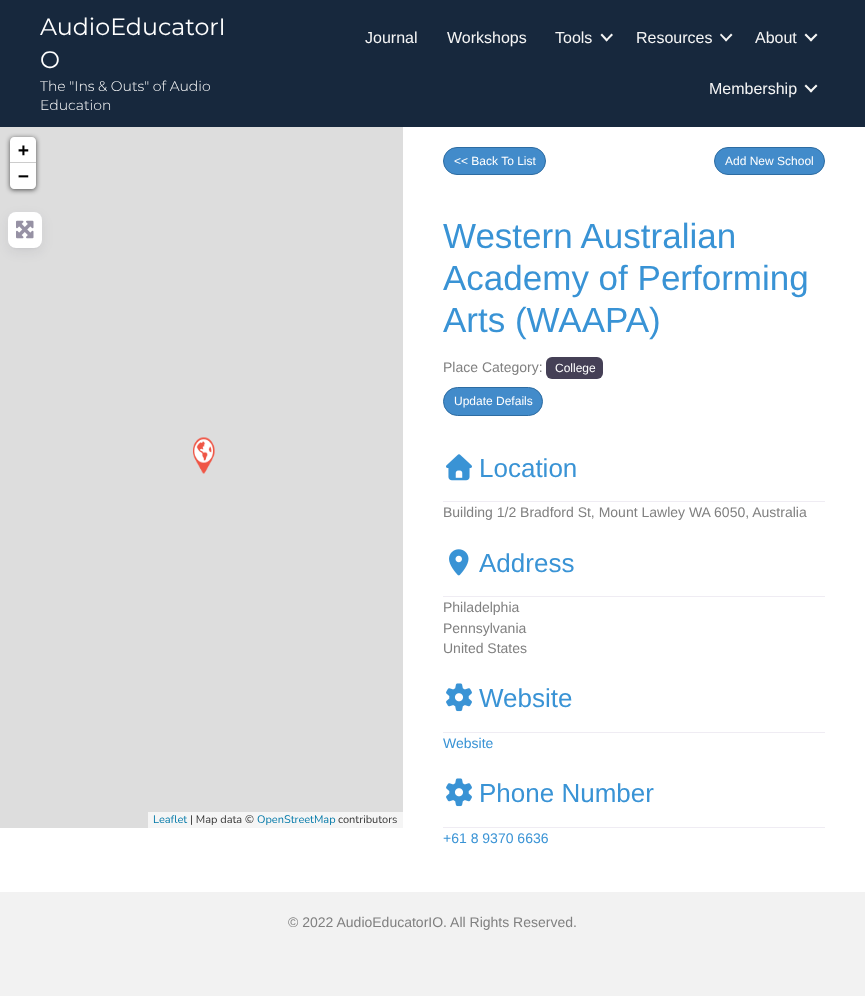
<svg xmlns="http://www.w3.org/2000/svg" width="865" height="996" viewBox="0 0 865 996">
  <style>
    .t1 { font: 23.75px Montserrat; fill: #fff; }
    .t2 { font: 300 14px Montserrat; fill: #fff; }
    .t3 { font: 16px Liberation Sans; fill: #f5f5f5; }
    .t4 { font: bold 18px DejaVu Sans Mono; fill: #000; }
    .t5 { font: 11px Nunito; fill: #0078a8; }
    .t6 { font: 11px Nunito; fill: #333; }
    .t7 { font: 12px Liberation Sans; fill: #fff; }
    .t8 { font: 35px Liberation Sans; fill: #3993d5; }
    .t9 { font: 14px Liberation Sans; fill: #808080; }
    .t10 { font: 26px Liberation Sans; fill: #3993d5; }
    .t11 { font: 14px Liberation Sans; fill: #3993d5; }
  </style>
  <rect width="100%" height="100%" fill="#f2f2f2"/>
  <rect x="0" y="0" width="865" height="127" fill="#17283d"/>
  <text x="40" y="35" class="t1">AudioEducatorI</text>
  <text x="40" y="68" class="t1">O</text>
  <text x="40" y="91" class="t2">The "Ins &amp; Outs" of Audio</text>
  <text x="40" y="110" class="t2">Education</text>
  <text x="365" y="43" class="t3">Journal</text>
  <text x="447" y="43" class="t3">Workshops</text>
  <text x="555" y="43" class="t3">Tools</text>
  <path d="M611.5 33.5L613 35L606.5 41.5L605.5 40Z" fill="#f5f5f5"/>
  <path d="M602 33.5L608 40L606.5 41.5L600.5 35Z" fill="#f5f5f5"/>
  <text x="636" y="43" class="t3">Resources</text>
  <path d="M731 33.5L732.5 35L726 41.5L725 40Z" fill="#f5f5f5"/>
  <path d="M721 33.5L727.5 40L726 41.5L720 35Z" fill="#f5f5f5"/>
  <text x="755" y="43" class="t3">About</text>
  <path d="M816 33.5L817.5 35L811 41.5L809.5 40Z" fill="#f5f5f5"/>
  <path d="M806 33.5L812.5 40L811 41.5L804.5 35ZM816 84.5L817.5 86L811 92.5L809.5 91Z" fill="#f5f5f5"/>
  <text x="709" y="94" class="t3">Membership</text>
  <path d="M806 84.5L812.5 91L811 92.5L804.5 86Z" fill="#f5f5f5"/>
  <rect x="0" y="127" width="865" height="765" fill="#fff"/>
  <rect x="0" y="127" width="403" height="701" fill="#ddd"/>
  <rect x="10" y="138" width="26" height="52" rx="4" fill="#000000a6" filter="blur(2.5px)"/>
  <path d="M14 137H32C34 137 36 139 36 141V163H10V141C10 139 12 137 14 137Z" fill="#fff"/>
  <rect x="10" y="162" width="26" height="1" fill="#ccc"/>
  <text x="18" y="156" class="t4">+</text>
  <path d="M10 163H36V185C36 187 34 189 32 189H14C12 189 10 187 10 185Z" fill="#fff"/>
  <text x="18" y="182" class="t4">−</text>
  <rect x="148" y="812" width="255" height="16" fill="#f5f5f5"/>
  <text x="153" y="823" class="t5">Leaflet</text>
  <text x="190" y="823" class="t6">| Map data ©</text>
  <text x="257" y="823" class="t5">OpenStreetMap</text>
  <text x="338" y="823" class="t6">contributors</text>
  <image x="193" y="437" width="22" height="37" href="images/1.png"/>
  <rect x="8" y="216" width="34" height="36" rx="8" fill="#1f1b2d14" filter="blur(6px)"/>
  <rect x="10" y="216" width="30" height="32" rx="6" fill="#1f1b2d14" filter="blur(1px)"/>
  <rect x="8" y="212" width="34" height="36" rx="8" fill="#fff"/>
  <image x="16" y="220" width="18" height="19" href="images/2.png"/>
  <rect x="443.5" y="147.5" width="102" height="27" rx="13.5" fill="#428bca" stroke="#2d6ca2"/>
  <text x="454" y="165" class="t7">&lt;&lt; Back To List</text>
  <rect x="714.5" y="147.5" width="110" height="27" rx="13.5" fill="#428bca" stroke="#2d6ca2"/>
  <text x="725" y="165" class="t7">Add New School</text>
  <text x="443" y="248" class="t8">Western Australian</text>
  <text x="443" y="290" class="t8">Academy of Performing</text>
  <text x="443" y="332" class="t8">Arts (WAAPA)</text>
  <text x="443" y="372" class="t9">Place Category:</text>
  <rect x="546" y="357" width="57" height="22" rx="6" fill="#454056"/>
  <text x="555" y="372" class="t7">College</text>
  <rect x="443.5" y="387.5" width="99" height="28" rx="14" fill="#428bca" stroke="#2d6ca2"/>
  <text x="454" y="405" class="t7">Update Defails</text>
  <image x="446" y="454" width="26" height="27" href="images/3.png"/>
  <text x="479" y="477" class="t10">Location</text>
  <rect x="443" y="501" width="382" height="1" fill="#efecf3"/>
  <text x="443" y="517" class="t9">Building 1/2 Bradford St, Mount Lawley WA 6050, Australia</text>
  <image x="449" y="549" width="20" height="27" href="images/4.png"/>
  <text x="479" y="572" class="t10">Address</text>
  <rect x="443" y="596" width="382" height="1" fill="#efecf3"/>
  <text x="443" y="612" class="t9">Philadelphia</text>
  <text x="443" y="633" class="t9">Pennsylvania</text>
  <text x="443" y="653" class="t9">United States</text>
  <image x="446" y="683" width="26" height="29" href="images/5.png"/>
  <text x="479" y="707" class="t10">Website</text>
  <rect x="443" y="732" width="382" height="1" fill="#efecf3"/>
  <text x="443" y="748" class="t11">Website</text>
  <image x="446" y="778" width="26" height="29" href="images/5.png"/>
  <text x="479" y="802" class="t10">Phone Number</text>
  <rect x="443" y="827" width="382" height="1" fill="#efecf3"/>
  <text x="443" y="843" class="t11">+61 8 9370 6636</text>
  <text x="288" y="927" class="t9">© 2022 AudioEducatorIO. All Rights Reserved.</text>
</svg>
